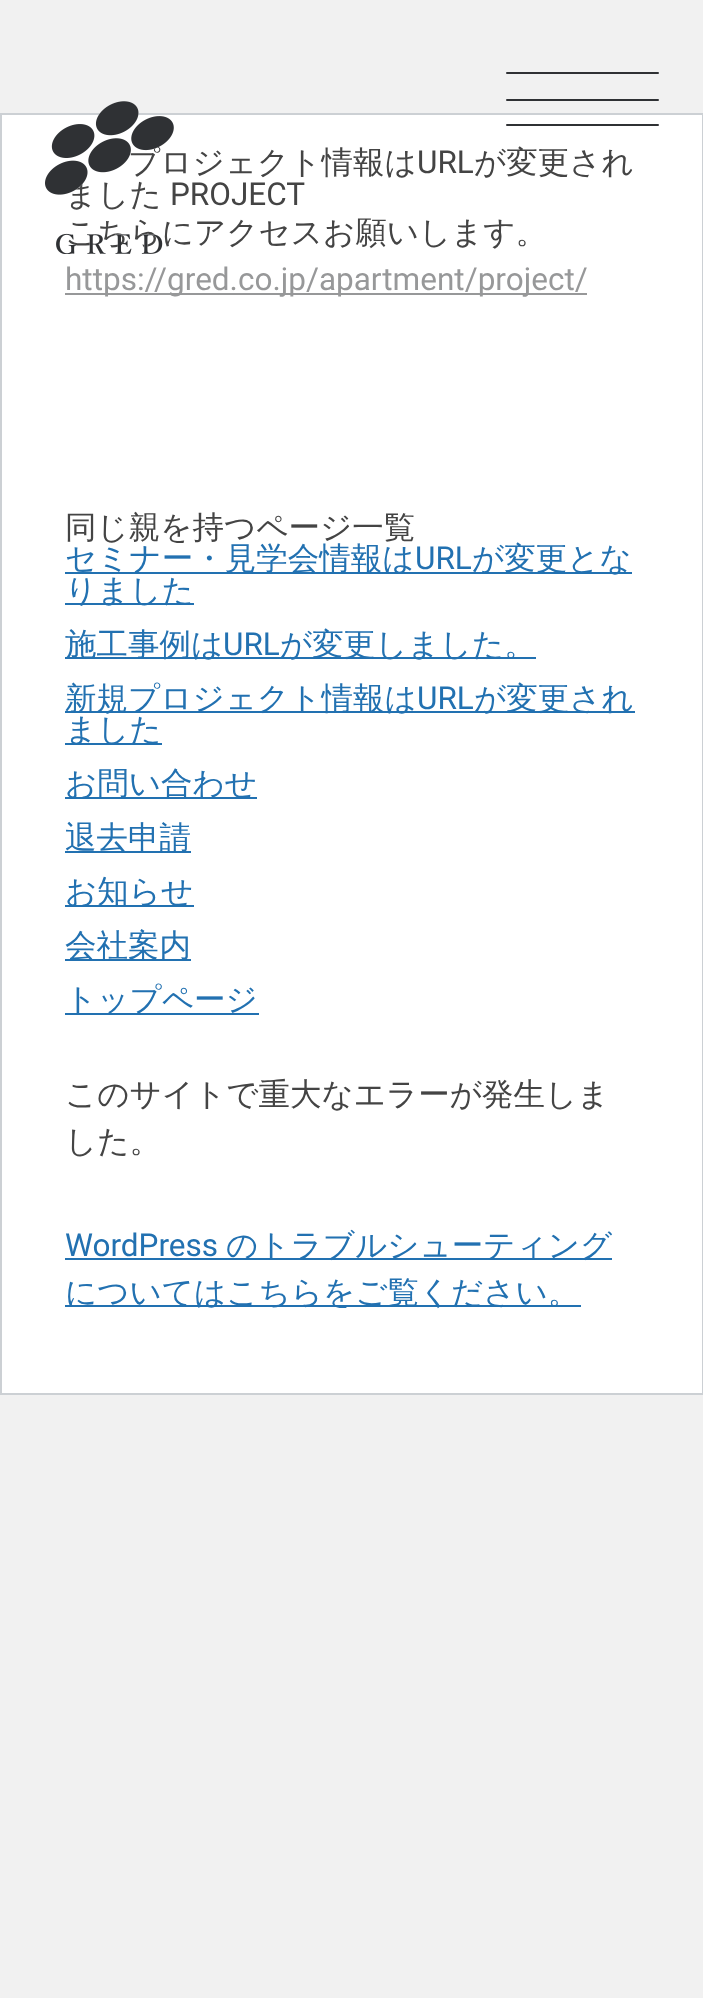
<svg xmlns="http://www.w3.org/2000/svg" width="703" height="1998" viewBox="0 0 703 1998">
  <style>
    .t1 { font: 500 31.5px WenQuanYi Zen Hei; fill: #444; }
    .t2 { font: 31.5px Roboto; fill: #444; }
    .t3 { font: 31.5px Roboto; fill: #979899; }
    .t4 { font: 500 31.5px WenQuanYi Zen Hei; fill: #2271b1; }
    .t5 { font: 31.5px Roboto; fill: #2271b1; }
  </style>
  <rect width="100%" height="100%" fill="#f1f1f1"/>
  <rect x="1" y="114" width="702" height="1280" fill="#fff" stroke="#ccd0d4" stroke-width="2"/>
  <text x="128" y="173" class="t1">プロジェクト情報は</text>
  <text x="65" y="205" class="t1">ました</text>
  <text x="65" y="243" class="t1">こちらにアクセスお願いします。</text>
  <image x="65" y="101" width="94" height="147" href="images/1.png"/>
  <text x="170" y="205" class="t2">PROJECT</text>
  <image x="45" y="101" width="129" height="153" href="images/2.png"/>
  <rect x="506" y="72" width="153" height="2" rx="1" fill="#2f3134"/>
  <rect x="506" y="99" width="153" height="2" rx="1" fill="#2f3134"/>
  <rect x="506" y="124" width="153" height="2" rx="1" fill="#2f3134"/>
  <text x="417" y="173" class="t2">URL</text>
  <text x="474" y="173" class="t1">が変更され</text>
  <rect x="65" y="293" width="522" height="2" fill="#979899"/>
  <text x="65" y="290" class="t3">https://gred.co.jp/apartment/project/</text>
  <text x="65" y="538" class="t1">同じ親を持つページ一覧</text>
  <rect x="65" y="572" width="567" height="2" fill="#2271b1"/>
  <text x="65" y="569" class="t4">セミナー・見学会情報は</text>
  <text x="415" y="569" class="t5">URL</text>
  <text x="472" y="569" class="t4">が変更とな</text>
  <rect x="65" y="603" width="129" height="2" fill="#2271b1"/>
  <text x="65" y="601" class="t4">りました</text>
  <rect x="65" y="657" width="471" height="2" fill="#2271b1"/>
  <text x="65" y="655" class="t4">施工事例は</text>
  <text x="223" y="655" class="t5">URL</text>
  <text x="280" y="655" class="t4">が変更しました。</text>
  <rect x="65" y="711" width="570" height="2" fill="#2271b1"/>
  <text x="65" y="709" class="t4">新規プロジェクト情報は</text>
  <text x="417" y="709" class="t5">URL</text>
  <text x="474" y="709" class="t4">が変更され</text>
  <rect x="65" y="743" width="97" height="2" fill="#2271b1"/>
  <text x="65" y="740" class="t4">ました</text>
  <rect x="65" y="797" width="192" height="2" fill="#2271b1"/>
  <text x="65" y="794" class="t4">お問い合わせ</text>
  <rect x="65" y="851" width="126" height="2" fill="#2271b1"/>
  <text x="65" y="848" class="t4">退去申請</text>
  <rect x="65" y="905" width="129" height="2" fill="#2271b1"/>
  <text x="65" y="902" class="t4">お知らせ</text>
  <rect x="65" y="959" width="126" height="2" fill="#2271b1"/>
  <text x="65" y="956" class="t4">会社案内</text>
  <rect x="65" y="1013" width="194" height="2" fill="#2271b1"/>
  <text x="65" y="1010" class="t4">トップページ</text>
  <text x="65" y="1105" class="t1">このサイトで重大なエラーが発生しま</text>
  <text x="65" y="1152" class="t1">した。</text>
  <text x="65" y="1256" class="t5">WordPress</text>
  <rect x="65" y="1258" width="547" height="2" fill="#2271b1"/>
  <text x="226" y="1256" class="t4">のトラブルシューティング</text>
  <rect x="65" y="1305" width="516" height="2" fill="#2271b1"/>
  <text x="65" y="1303" class="t4">についてはこちらをご覧ください。</text>
</svg>
